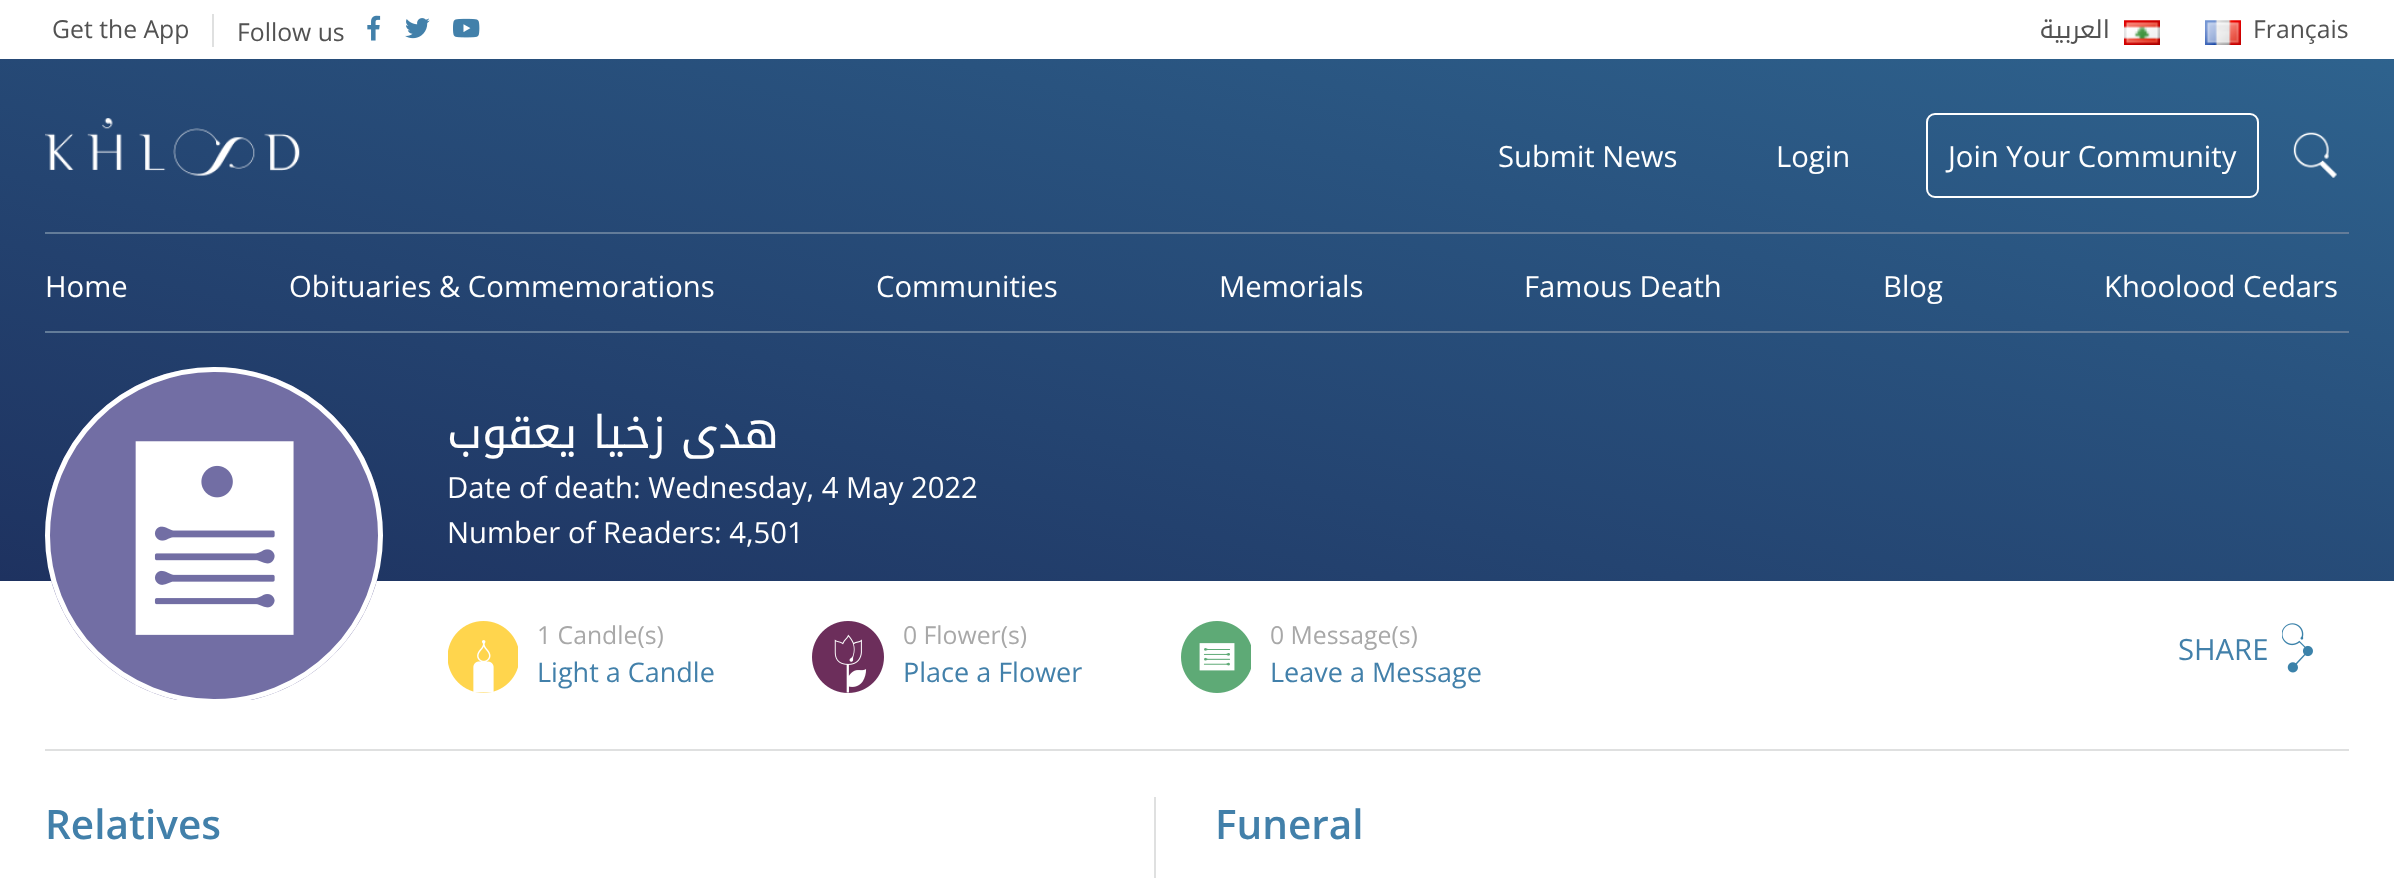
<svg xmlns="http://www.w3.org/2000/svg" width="2394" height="878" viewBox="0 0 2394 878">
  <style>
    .t1 { font: 24.75px Open Sans; fill: #525252; }
    .t2 { font: 24.75px Noto Kufi Arabic; direction: rtl; fill: #525252; }
    .t3 { font: 29.25px Open Sans; fill: #fff; }
    .t4 { font: 45px Noto Kufi Arabic; direction: rtl; fill: #fff; }
    .t5 { font: 24.75px Open Sans; fill: #a8a8a8; }
    .t6 { font: 27px Open Sans; fill: #4280aa; }
    .t7 { font: 29.25px Open Sans; fill: #4280aa; }
    .t8 { font: 600 40.5px Open Sans; fill: #4280aa; }
  </style>
  <defs>
    <linearGradient id="g1" gradientUnits="userSpaceOnUse" x1="1064" y1="839" x2="1330" y2="-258"><stop offset="0" stop-color="#1e3260"/><stop offset="1" stop-color="#2f6590"/></linearGradient>
  </defs>
  <rect width="100%" height="100%" fill="#fff"/>
  <rect x="0" y="59" width="2394" height="522" fill="url(#g1)"/>
  <text x="52" y="38" class="t1">Get the App</text>
  <text x="237" y="41" class="t1">Follow us</text>
  <rect x="212" y="14" width="2" height="33" fill="#dfe0e0"/>
  <image x="367" y="15" width="14" height="26" href="images/1.png"/>
  <image x="405" y="18" width="25" height="21" href="images/2.png"/>
  <image x="453" y="18" width="27" height="20" href="images/3.png"/>
  <text x="2110" y="38" class="t2">العربية</text>
  <image x="2124" y="20" width="36" height="25" href="images/4.png"/>
  <image x="2205" y="20" width="36" height="25" href="images/5.png"/>
  <text x="2253" y="38" class="t1">Français</text>
  <image x="45" y="118" width="255" height="58" href="images/6.png"/>
  <text x="1498" y="167" class="t3">Submit News</text>
  <text x="1776" y="167" class="t3">Login</text>
  <rect x="1927" y="114" width="331" height="83" rx="8" fill="none" stroke="#fff" stroke-width="2"/>
  <text x="1948" y="167" class="t3">Join Your Community</text>
  <image x="2293" y="132" width="44" height="46" href="images/7.png"/>
  <rect x="45" y="232" width="2304" height="2" fill="#637c99"/>
  <rect x="45" y="331" width="2304" height="2" fill="#637c99"/>
  <text x="45" y="297" class="t3">Home</text>
  <text x="289" y="297" class="t3">Obituaries &amp; Commemorations</text>
  <text x="876" y="297" class="t3">Communities</text>
  <text x="1219" y="297" class="t3">Memorials</text>
  <text x="1524" y="297" class="t3">Famous Death</text>
  <text x="1883" y="297" class="t3">Blog</text>
  <text x="2104" y="297" class="t3">Khoolood Cedars</text>
  <rect x="45" y="749" width="2304" height="2" fill="#dfe0e0"/>
  <image x="50" y="371" width="328" height="329" href="images/8.png"/>
  <rect x="47.5" y="369.5" width="333" height="332" rx="166" fill="none" stroke="#fff" stroke-width="5"/>
  <text x="779" y="448" class="t4">هدى زخيا يعقوب</text>
  <text x="447" y="498" class="t3">Date of death: Wednesday, 4 May 2022</text>
  <text x="447" y="543" class="t3">Number of Readers: 4,501</text>
  <image x="448" y="621" width="70" height="72" href="images/9.png"/>
  <text x="537" y="644" class="t5">1 Candle(s)</text>
  <text x="537" y="682" class="t6">Light a Candle</text>
  <image x="812" y="621" width="72" height="72" href="images/10.png"/>
  <text x="903" y="644" class="t5">0 Flower(s)</text>
  <text x="903" y="682" class="t6">Place a Flower</text>
  <image x="1181" y="621" width="70" height="72" href="images/11.png"/>
  <text x="1270" y="644" class="t5">0 Message(s)</text>
  <text x="1270" y="682" class="t6">Leave a Message</text>
  <image x="2282" y="623" width="31" height="50" href="images/12.png"/>
  <text x="2178" y="660" class="t7">SHARE</text>
  <text x="45" y="839" class="t8">Relatives</text>
  <rect x="1154" y="797" width="2" height="81" fill="#dfe0e0"/>
  <text x="1215" y="839" class="t8">Funeral</text>
</svg>
